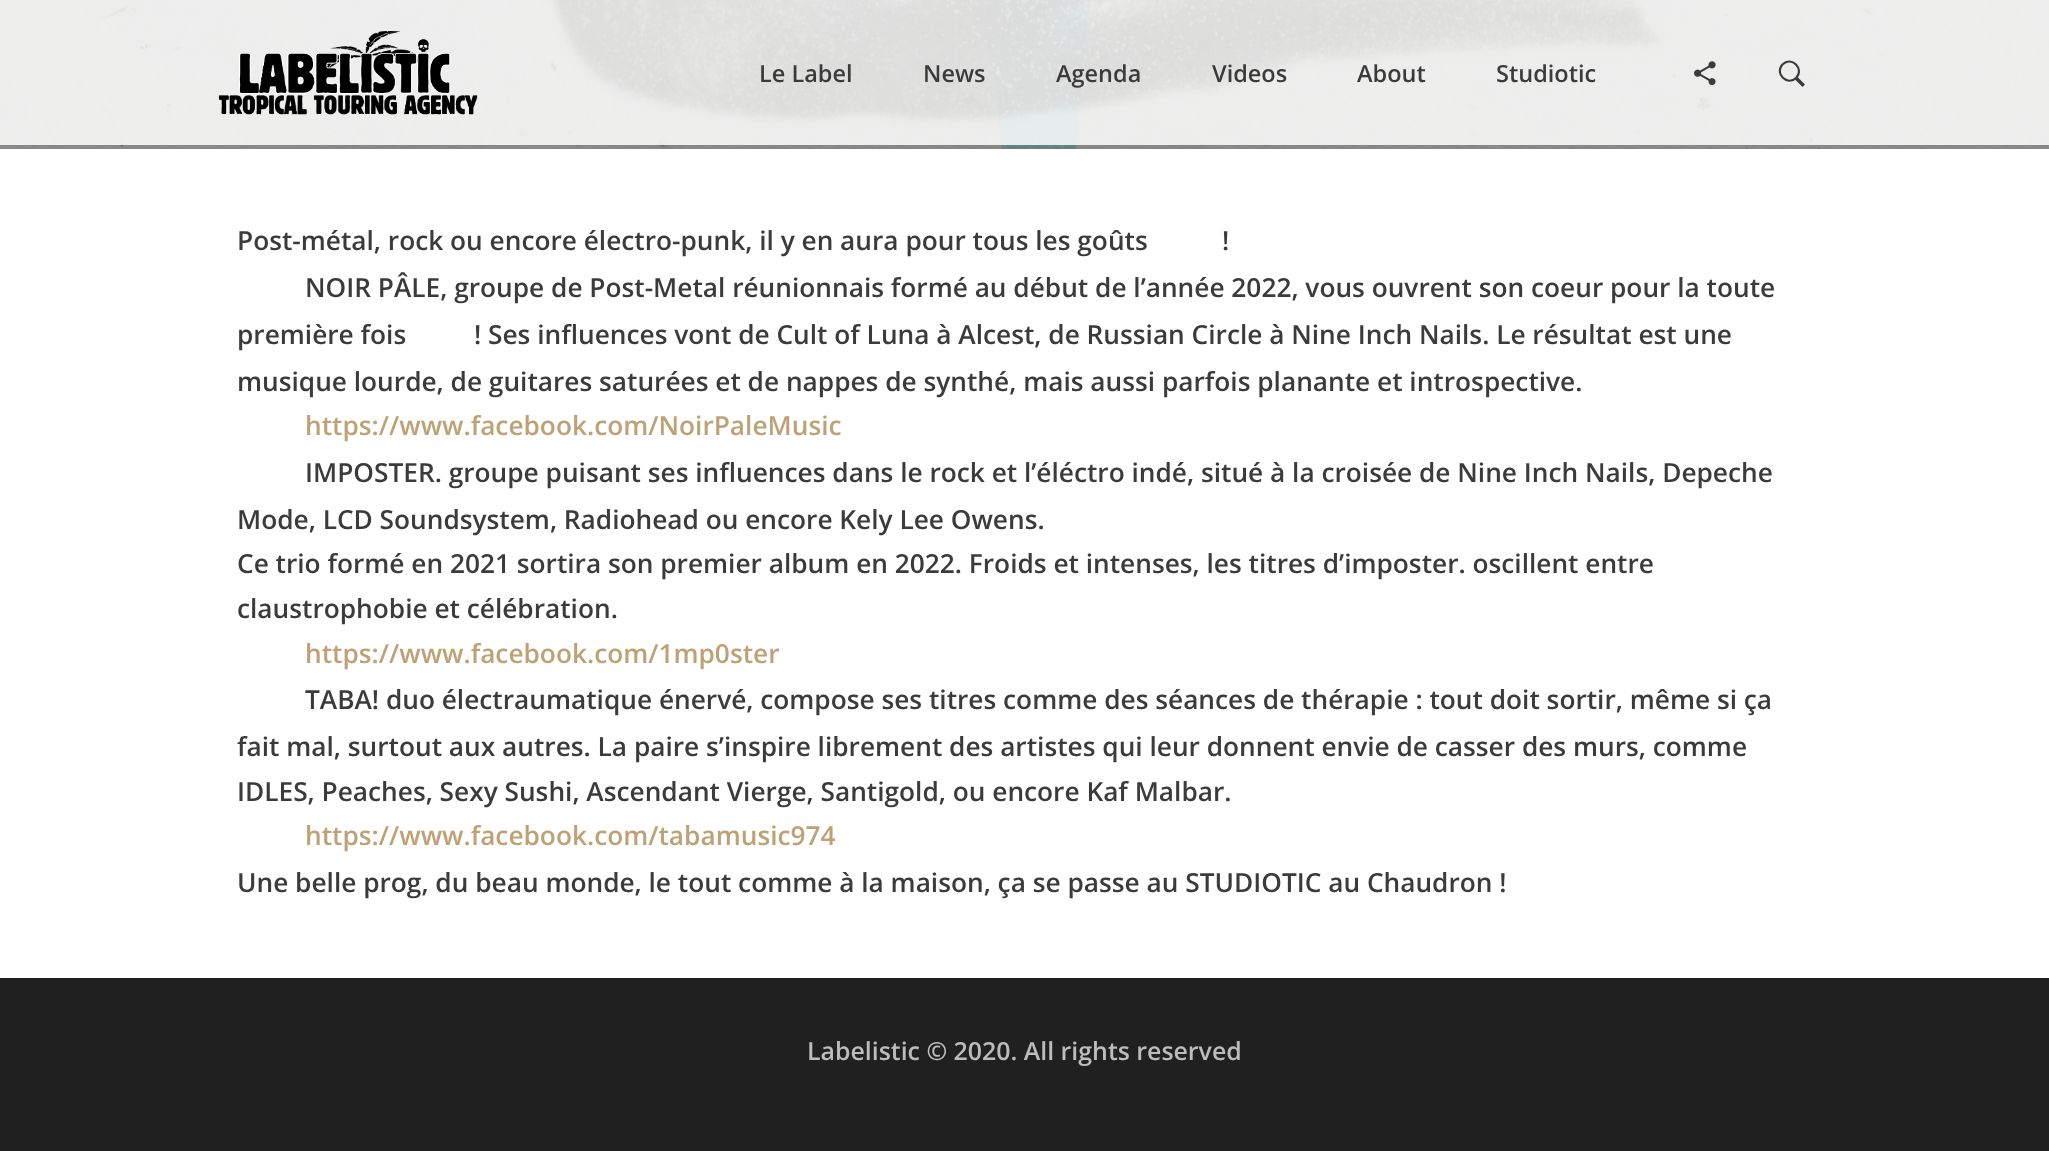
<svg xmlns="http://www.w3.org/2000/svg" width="2049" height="1151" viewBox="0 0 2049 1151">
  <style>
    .t1 { font: 600 23.5px Open Sans; fill: #3b3b3b; }
    .t2 { font: 600 26.25px Open Sans; fill: #3b3b3b; }
    .t3 { font: 600 26.25px Open Sans; fill: #bea175; }
    .t4 { font: 600 24.9px Open Sans; fill: #bcbcbc; }
  </style>
  <rect width="100%" height="100%" fill="#fff"/>
  <rect x="0" y="0" width="2049" height="145" fill="#ddd"/>
  <rect x="0" y="145" width="2049" height="4" fill="#1c1c1c"/>
  <image x="0" y="0" width="2049" height="149" href="images/3.png"/>
  <image x="219" y="31" width="259" height="84" href="images/1.png"/>
  <text x="759" y="82" class="t1">Le Label</text>
  <text x="923" y="82" class="t1">News</text>
  <text x="1056" y="82" class="t1">Agenda</text>
  <text x="1212" y="82" class="t1">Videos</text>
  <text x="1357" y="82" class="t1">About</text>
  <text x="1496" y="82" class="t1">Studiotic</text>
  <image x="1694" y="61" width="22" height="25" href="images/2.png"/>
  <path d="M1782.5 64.5C1791.5 55.5 1805 69 1796 78C1787.5 86.5 1774 73.5 1782.5 64.5Z" fill="none" stroke="#3b3b3b" stroke-width="2.1"/>
  <path d="M1795 79.5L1797.5 77L1805 84.5L1802.5 87Z" fill="#3b3b3b"/>
  <text x="237" y="250" class="t2">Post-métal, rock ou encore électro-punk, il y en aura pour tous les goûts</text>
  <text x="1222" y="250" class="t2">!</text>
  <text x="305" y="297" class="t2">NOIR PÂLE, groupe de Post-Metal réunionnais formé au début de l’année 2022, vous ouvrent son coeur pour la toute</text>
  <text x="237" y="344" class="t2">première fois</text>
  <text x="474" y="344" class="t2">! Ses influences vont de Cult of Luna à Alcest, de Russian Circle à Nine Inch Nails. Le résultat est une</text>
  <text x="237" y="391" class="t2">musique lourde, de guitares saturées et de nappes de synthé, mais aussi parfois planante et introspective.</text>
  <text x="305" y="435" class="t3">https://www.facebook.com/NoirPaleMusic</text>
  <text x="305" y="482" class="t2">IMPOSTER. groupe puisant ses influences dans le rock et l’éléctro indé, situé à la croisée de Nine Inch Nails, Depeche</text>
  <text x="237" y="529" class="t2">Mode, LCD Soundsystem, Radiohead ou encore Kely Lee Owens.</text>
  <text x="237" y="573" class="t2">Ce trio formé en 2021 sortira son premier album en 2022. Froids et intenses, les titres d’imposter. oscillent entre</text>
  <text x="237" y="618" class="t2">claustrophobie et célébration.</text>
  <text x="305" y="663" class="t3">https://www.facebook.com/1mp0ster</text>
  <text x="305" y="709" class="t2">TABA! duo électraumatique énervé, compose ses titres comme des séances de thérapie : tout doit sortir, même si ça</text>
  <text x="237" y="756" class="t2">fait mal, surtout aux autres. La paire s’inspire librement des artistes qui leur donnent envie de casser des murs, comme</text>
  <text x="237" y="801" class="t2">IDLES, Peaches, Sexy Sushi, Ascendant Vierge, Santigold, ou encore Kaf Malbar.</text>
  <text x="305" y="845" class="t3">https://www.facebook.com/tabamusic974</text>
  <text x="237" y="892" class="t2">Une belle prog, du beau monde, le tout comme à la maison, ça se passe au STUDIOTIC au Chaudron !</text>
  <rect x="0" y="978" width="2049" height="173" fill="#202020"/>
  <text x="807" y="1060" class="t4">Labelistic © 2020. All rights reserved</text>
</svg>
